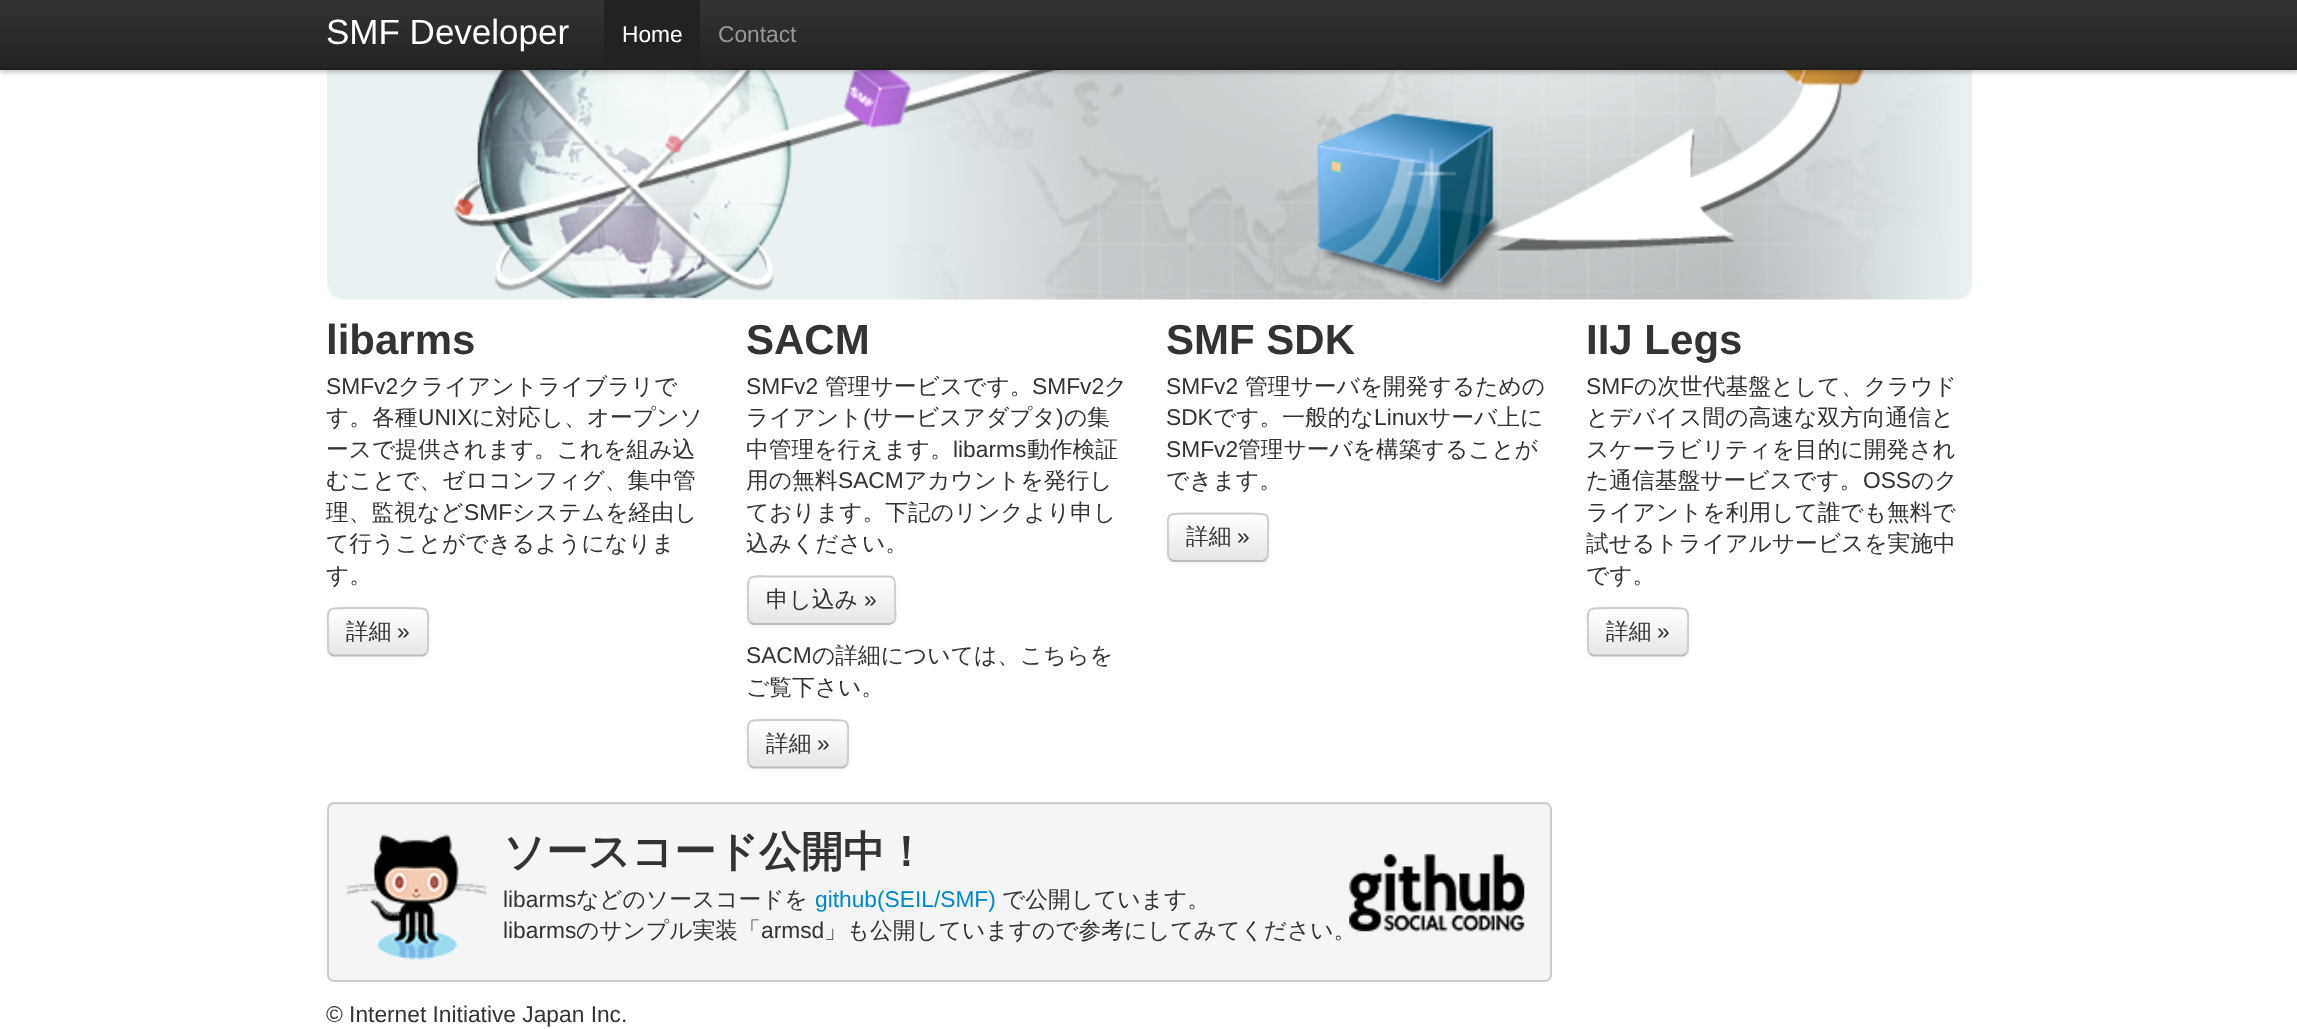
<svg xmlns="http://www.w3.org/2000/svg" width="2297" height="1029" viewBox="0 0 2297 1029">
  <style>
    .t1 { font: 35px Liberation Sans; fill: #fff; }
    .t2 { font: 22.75px Liberation Sans; fill: #fff; }
    .t3 { font: 22.75px Liberation Sans; fill: #999; }
    .t4 { font: bold 42px Liberation Sans; fill: #333; }
    .t5 { font: 22.75px Liberation Sans; fill: #333; }
    .t6 { font: 500 22.75px WenQuanYi Zen Hei; fill: #333; }
    .t7 { font: bold 42px WenQuanYi Zen Hei; fill: #333; }
    .t8 { font: 22.75px Liberation Sans; fill: #08c; }
  </style>
  <defs>
    <linearGradient id="g1" gradientUnits="userSpaceOnUse" x1="1149" y1="0" x2="1149" y2="70"><stop offset="0" stop-color="#333"/><stop offset="1" stop-color="#222"/></linearGradient>
    <clipPath id="clip1"><rect x="327" y="607" width="102" height="49" rx="7"/></clipPath>
    <linearGradient id="g2" gradientUnits="userSpaceOnUse" x1="378" y1="609" x2="378" y2="655"><stop offset="0" stop-color="#fff"/><stop offset="1" stop-color="#e6e6e6"/></linearGradient>
    <clipPath id="clip2"><rect x="747" y="576" width="149" height="49" rx="7"/></clipPath>
    <linearGradient id="g3" gradientUnits="userSpaceOnUse" x1="822" y1="578" x2="822" y2="623"><stop offset="0" stop-color="#fff"/><stop offset="1" stop-color="#e6e6e6"/></linearGradient>
    <clipPath id="clip3"><rect x="747" y="719" width="102" height="49" rx="7"/></clipPath>
    <linearGradient id="g4" gradientUnits="userSpaceOnUse" x1="798" y1="721" x2="798" y2="767"><stop offset="0" stop-color="#fff"/><stop offset="1" stop-color="#e6e6e6"/></linearGradient>
    <clipPath id="clip4"><rect x="1167" y="513" width="102" height="49" rx="7"/></clipPath>
    <linearGradient id="g5" gradientUnits="userSpaceOnUse" x1="1218" y1="515" x2="1218" y2="560"><stop offset="0" stop-color="#fff"/><stop offset="1" stop-color="#e6e6e6"/></linearGradient>
    <clipPath id="clip5"><rect x="1587" y="607" width="102" height="49" rx="7"/></clipPath>
    <linearGradient id="g6" gradientUnits="userSpaceOnUse" x1="1638" y1="609" x2="1638" y2="655"><stop offset="0" stop-color="#fff"/><stop offset="1" stop-color="#e6e6e6"/></linearGradient>
  </defs>
  <rect width="100%" height="100%" fill="#fff"/>
  <image x="327" y="70" width="1646" height="230" href="images/1.png"/>
  <rect x="0" y="2" width="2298" height="70" fill="#00000040" filter="blur(2.5px)"/>
  <rect x="0" y="0" width="2297" height="68" fill="url(#g1)"/>
  <rect x="0" y="68" width="2297" height="2" fill="#1f1f1f"/>
  <text x="326" y="44" class="t1">SMF Developer</text>
  <rect x="604" y="0" width="96" height="70" fill="#222"/>
  <text x="622" y="42" class="t2">Home</text>
  <text x="718" y="42" class="t3">Contact</text>
  <text x="326" y="354" class="t4">libarms</text>
  <text x="326" y="394" class="t5">SMFv2</text>
  <text x="398" y="394" class="t6">クライアントライブラリで</text>
  <text x="326" y="425" class="t6">す。各種</text>
  <text x="418" y="425" class="t5">UNIX</text>
  <text x="472" y="425" class="t6">に対応し、オープンソ</text>
  <text x="326" y="457" class="t6">ースで提供されます。これを組み込</text>
  <text x="326" y="488" class="t6">むことで、ゼロコンフィグ、集中管</text>
  <text x="326" y="520" class="t6">理、監視など</text>
  <text x="464" y="520" class="t5">SMF</text>
  <text x="512" y="520" class="t6">システムを経由し</text>
  <text x="326" y="551" class="t6">て行うことができるようになりま</text>
  <text x="326" y="583" class="t6">す。</text>
  <rect x="327" y="609" width="102" height="49" rx="7" fill="#0000000d" filter="blur(2px)"/>
  <rect x="327" y="607" width="102" height="49" rx="7" fill="#f5f5f5"/>
  <g clip-path="url(#clip1)">
    <rect x="327" y="609" width="102" height="46" fill="url(#g2)"/>
  </g>
  <path d="M426 653.5C425 654.5 423.5 655.5 422 655.5H334C332.5 655.5 331 654.5 330 653.5" fill="none" stroke="#bbb" stroke-width="1.8"/>
  <path d="M330 653.5C327.5 651 328 646.5 328 643.5V632C328 607 324 608 349 608H407C432 608 428 607 428 632V643.5C428 646.5 428.5 651 426 653.5" fill="none" stroke="#ccc" stroke-width="1.8"/>
  <text x="346" y="639" class="t6">詳細</text>
  <text x="397" y="639" class="t5">»</text>
  <text x="746" y="354" class="t4">SACM</text>
  <text x="746" y="394" class="t5">SMFv2</text>
  <text x="825" y="394" class="t6">管理サービスです。</text>
  <text x="1032" y="394" class="t5">SMFv2</text>
  <text x="1104" y="394" class="t6">ク</text>
  <text x="746" y="425" class="t6">ライアント</text>
  <text x="863" y="425" class="t5">(</text>
  <text x="870" y="425" class="t6">サービスアダプタ</text>
  <text x="1056" y="425" class="t5">)</text>
  <text x="1064" y="425" class="t6">の集</text>
  <text x="746" y="457" class="t6">中管理を行えます。</text>
  <text x="953" y="457" class="t5">libarms</text>
  <text x="1027" y="457" class="t6">動作検証</text>
  <text x="746" y="488" class="t6">用の無料</text>
  <text x="838" y="488" class="t5">SACM</text>
  <text x="904" y="488" class="t6">アカウントを発行し</text>
  <text x="746" y="520" class="t6">ております。下記のリンクより申し</text>
  <text x="746" y="551" class="t6">込みください。</text>
  <rect x="747" y="578" width="149" height="49" rx="7" fill="#0000000d" filter="blur(2px)"/>
  <rect x="747" y="576" width="149" height="49" rx="7" fill="#f5f5f5"/>
  <g clip-path="url(#clip2)">
    <rect x="747" y="578" width="149" height="45" fill="url(#g3)"/>
  </g>
  <path d="M893.5 622C892 623 890.5 624 889 624H754C752.5 624 751 623 750 622" fill="none" stroke="#bbb" stroke-width="1.8"/>
  <path d="M750 622C747.5 619.5 748 615 748 612V600C748 571.5 745.5 576.5 776.5 576.5H889C895.5 576.5 895 584 895 588.5V606C895 610 897 618.5 893.5 622" fill="none" stroke="#ccc" stroke-width="1.8"/>
  <text x="766" y="607" class="t6">申し込み</text>
  <text x="864" y="607" class="t5">»</text>
  <text x="746" y="663" class="t5">SACM</text>
  <text x="812" y="663" class="t6">の詳細については、こちらを</text>
  <text x="746" y="695" class="t6">ご覧下さい。</text>
  <rect x="747" y="721" width="102" height="49" rx="7" fill="#0000000d" filter="blur(2px)"/>
  <rect x="747" y="719" width="102" height="49" rx="7" fill="#f5f5f5"/>
  <g clip-path="url(#clip3)">
    <rect x="747" y="721" width="102" height="46" fill="url(#g4)"/>
  </g>
  <path d="M846 765.5C845 766.5 843.5 767.5 842 767.5H754C752.5 767.5 751 766.5 750 765.5" fill="none" stroke="#bbb" stroke-width="1.8"/>
  <path d="M750 765.5C747.5 763 748 758.5 748 755.5V744C748 719 744 720 769 720H827C852 720 848 719 848 744V755.5C848 758.5 848.5 763 846 765.5" fill="none" stroke="#ccc" stroke-width="1.8"/>
  <text x="766" y="751" class="t6">詳細</text>
  <text x="817" y="751" class="t5">»</text>
  <text x="1166" y="354" class="t4">SMF SDK</text>
  <text x="1166" y="394" class="t5">SMFv2</text>
  <text x="1245" y="394" class="t6">管理サーバを開発するための</text>
  <text x="1166" y="425" class="t5">SDK</text>
  <text x="1213" y="425" class="t6">です。一般的な</text>
  <text x="1374" y="425" class="t5">Linux</text>
  <text x="1428" y="425" class="t6">サーバ上に</text>
  <text x="1166" y="457" class="t5">SMFv2</text>
  <text x="1238" y="457" class="t6">管理サーバを構築することが</text>
  <text x="1166" y="488" class="t6">できます。</text>
  <rect x="1167" y="515" width="102" height="49" rx="7" fill="#0000000d" filter="blur(2px)"/>
  <rect x="1167" y="513" width="102" height="49" rx="7" fill="#f5f5f5"/>
  <g clip-path="url(#clip4)">
    <rect x="1167" y="515" width="102" height="45" fill="url(#g5)"/>
  </g>
  <path d="M1266 559C1265 560 1263.5 561 1262 561H1174C1172.5 561 1171 560 1170 559" fill="none" stroke="#bbb" stroke-width="1.8"/>
  <path d="M1170 559C1167.5 556.5 1168 552 1168 549V537C1168 512.5 1164 513.5 1189 513.5H1247C1272 513.5 1268 512.5 1268 537V549C1268 552 1268.5 556.5 1266 559" fill="none" stroke="#ccc" stroke-width="1.8"/>
  <text x="1186" y="544" class="t6">詳細</text>
  <text x="1237" y="544" class="t5">»</text>
  <text x="1586" y="354" class="t4">IIJ Legs</text>
  <text x="1586" y="394" class="t5">SMF</text>
  <text x="1634" y="394" class="t6">の次世代基盤として、クラウド</text>
  <text x="1586" y="425" class="t6">とデバイス間の高速な双方向通信と</text>
  <text x="1586" y="457" class="t6">スケーラビリティを目的に開発され</text>
  <text x="1586" y="488" class="t6">た通信基盤サービスです。</text>
  <text x="1863" y="488" class="t5">OSS</text>
  <text x="1911" y="488" class="t6">のク</text>
  <text x="1586" y="520" class="t6">ライアントを利用して誰でも無料で</text>
  <text x="1586" y="551" class="t6">試せるトライアルサービスを実施中</text>
  <text x="1586" y="583" class="t6">です。</text>
  <rect x="1587" y="609" width="102" height="49" rx="7" fill="#0000000d" filter="blur(2px)"/>
  <rect x="1587" y="607" width="102" height="49" rx="7" fill="#f5f5f5"/>
  <g clip-path="url(#clip5)">
    <rect x="1587" y="609" width="102" height="46" fill="url(#g6)"/>
  </g>
  <path d="M1686 653.5C1685 654.5 1683.5 655.5 1682 655.5H1594C1592.5 655.5 1591 654.5 1590 653.5" fill="none" stroke="#bbb" stroke-width="1.8"/>
  <path d="M1590 653.5C1587.5 651 1588 646.5 1588 643.5V632C1588 607 1584 608 1609 608H1667C1692 608 1688 607 1688 632V643.5C1688 646.5 1688.5 651 1686 653.5" fill="none" stroke="#ccc" stroke-width="1.8"/>
  <text x="1606" y="639" class="t6">詳細</text>
  <text x="1657" y="639" class="t5">»</text>
  <rect x="327" y="802" width="1225" height="180" rx="7" fill="#f5f5f5"/>
  <path d="M334 805H1545C1548 805 1550 807 1550 810V976V979C1550 978 1551 976 1551 975V808C1551 805 1549 803 1546 803H334C331 803 329 805 329 808V810C329 807 331 805 334 805Z" fill="#e9e9e9"/>
  <rect x="328" y="803" width="1223" height="178" rx="6" fill="none" stroke="#ccc" stroke-width="2"/>
  <image x="346" y="834" width="141" height="126" href="images/2.png"/>
  <text x="503" y="866" class="t7">ソースコード公開中！</text>
  <image x="1349" y="854" width="176" height="78" href="images/3.png"/>
  <text x="503" y="907" class="t5">libarms</text>
  <text x="576" y="907" class="t6">などのソースコードを</text>
  <text x="815" y="907" class="t8">github(SEIL/SMF)</text>
  <text x="1002" y="907" class="t6">で公開しています。</text>
  <text x="503" y="938" class="t5">libarms</text>
  <text x="576" y="938" class="t6">のサンプル実装「</text>
  <text x="761" y="938" class="t5">armsd</text>
  <text x="824" y="938" class="t6">」も公開していますので参考にしてみてください。</text>
  <text x="326" y="1022" class="t5">© Internet Initiative Japan Inc.</text>
</svg>
